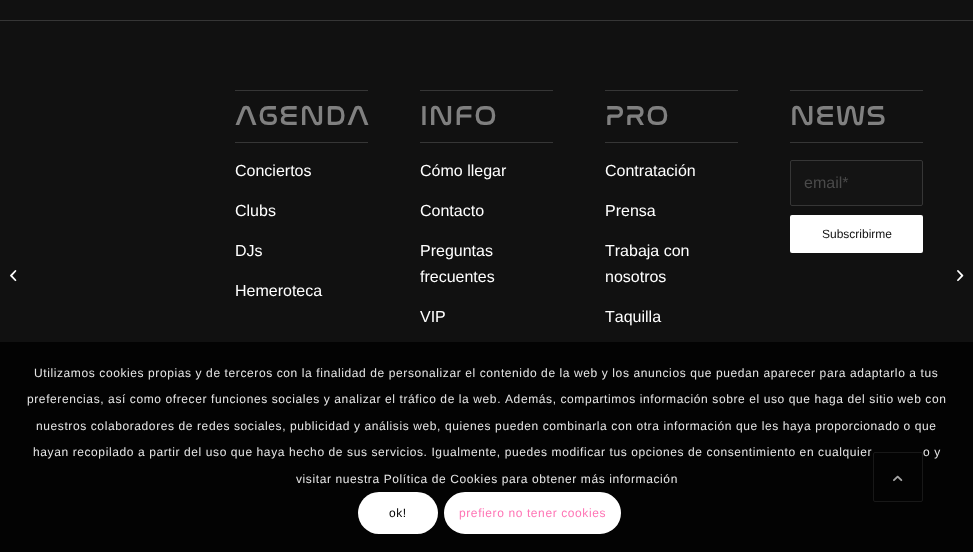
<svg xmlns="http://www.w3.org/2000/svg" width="973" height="552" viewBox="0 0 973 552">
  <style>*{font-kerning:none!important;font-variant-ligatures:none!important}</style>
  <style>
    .t1 { font: 28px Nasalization; letter-spacing: 1px; fill: #808080; }
    .t2 { font: 16px Liberation Sans; fill: #fff; }
    .t3 { font: 16px Liberation Sans; fill: #4a4a4a; }
    .t4 { font: 12px Liberation Sans; fill: #111; }
    .t5 { font: 12px Liberation Sans; letter-spacing: 0.6px; fill: #e6e6e6; }
    .t6 { font: 12px Liberation Sans; letter-spacing: 0.6px; fill: #000; }
    .t7 { font: 12px Liberation Sans; letter-spacing: 0.6px; fill: #ff75b5; }
  </style>
  <rect width="100%" height="100%" fill="#111"/>
  <image x="10" y="270" width="7" height="12" href="images/1.png"/>
  <rect x="0" y="20" width="973" height="1" fill="#363636"/>
  <rect x="235" y="90" width="133" height="1" fill="#363636"/>
  <rect x="235" y="142" width="133" height="1" fill="#363636"/>
  <text x="235" y="125" class="t1">AGENDA</text>
  <text x="235" y="176" class="t2">Conciertos</text>
  <text x="235" y="216" class="t2">Clubs</text>
  <text x="235" y="256" class="t2">DJs</text>
  <text x="235" y="296" class="t2">Hemeroteca</text>
  <rect x="420" y="90" width="133" height="1" fill="#363636"/>
  <rect x="420" y="142" width="133" height="1" fill="#363636"/>
  <text x="420" y="125" class="t1">INFO</text>
  <text x="420" y="176" class="t2">Cómo llegar</text>
  <text x="420" y="216" class="t2">Contacto</text>
  <text x="420" y="256" class="t2">Preguntas</text>
  <text x="420" y="282" class="t2">frecuentes</text>
  <text x="420" y="322" class="t2">VIP</text>
  <rect x="605" y="90" width="133" height="1" fill="#363636"/>
  <rect x="605" y="142" width="133" height="1" fill="#363636"/>
  <text x="605" y="125" class="t1">PRO</text>
  <text x="605" y="176" class="t2">Contratación</text>
  <text x="605" y="216" class="t2">Prensa</text>
  <text x="605" y="256" class="t2">Trabaja con</text>
  <text x="605" y="282" class="t2">nosotros</text>
  <text x="605" y="322" class="t2">Taquilla</text>
  <rect x="790" y="90" width="133" height="1" fill="#363636"/>
  <rect x="790" y="142" width="133" height="1" fill="#363636"/>
  <text x="790" y="125" class="t1">NEWS</text>
  <rect x="790.5" y="160.5" width="132" height="45" rx="1.5" fill="#141414" stroke="#363636"/>
  <text x="804" y="188" class="t3">email*</text>
  <rect x="790" y="215" width="133" height="38" rx="2" fill="#fff"/>
  <text x="822" y="238" class="t4">Subscribirme</text>
  <image x="957" y="270" width="7" height="12" href="images/2.png"/>
  <rect x="0" y="342" width="973" height="210" fill="#030303"/>
  <text x="34" y="377" class="t5">Utilizamos cookies propias y de terceros con la finalidad de personalizar el contenido de la web y los anuncios que puedan aparecer para adaptarlo a tus</text>
  <text x="27" y="403" class="t5">preferencias, así como ofrecer funciones sociales y analizar el tráfico de la web. Además, compartimos información sobre el uso que haga del sitio web con</text>
  <text x="36" y="430" class="t5">nuestros colaboradores de redes sociales, publicidad y análisis web, quienes pueden combinarla con otra información que les haya proporcionado o que</text>
  <text x="33" y="456" class="t5">hayan recopilado a partir del uso que haya hecho de sus servicios. Igualmente, puedes modificar tus opciones de consentimiento en cualquier</text>
  <text x="923" y="456" class="t5">o y</text>
  <text x="296" y="483" class="t5">visitar nuestra Política de Cookies para obtener más información</text>
  <rect x="358" y="492" width="80" height="42" rx="21" fill="#fff"/>
  <text x="389" y="517" class="t6">ok!</text>
  <rect x="445" y="493" width="175" height="40" rx="20" fill="#fff" stroke="#fff" stroke-width="2"/>
  <text x="459" y="517" class="t7">prefiero no tener cookies</text>
  <rect x="873.5" y="452.5" width="49" height="49" rx="1.5" fill="none" stroke="#222222b3"/>
  <image x="893" y="475" width="10" height="7" href="images/3.png"/>
</svg>
